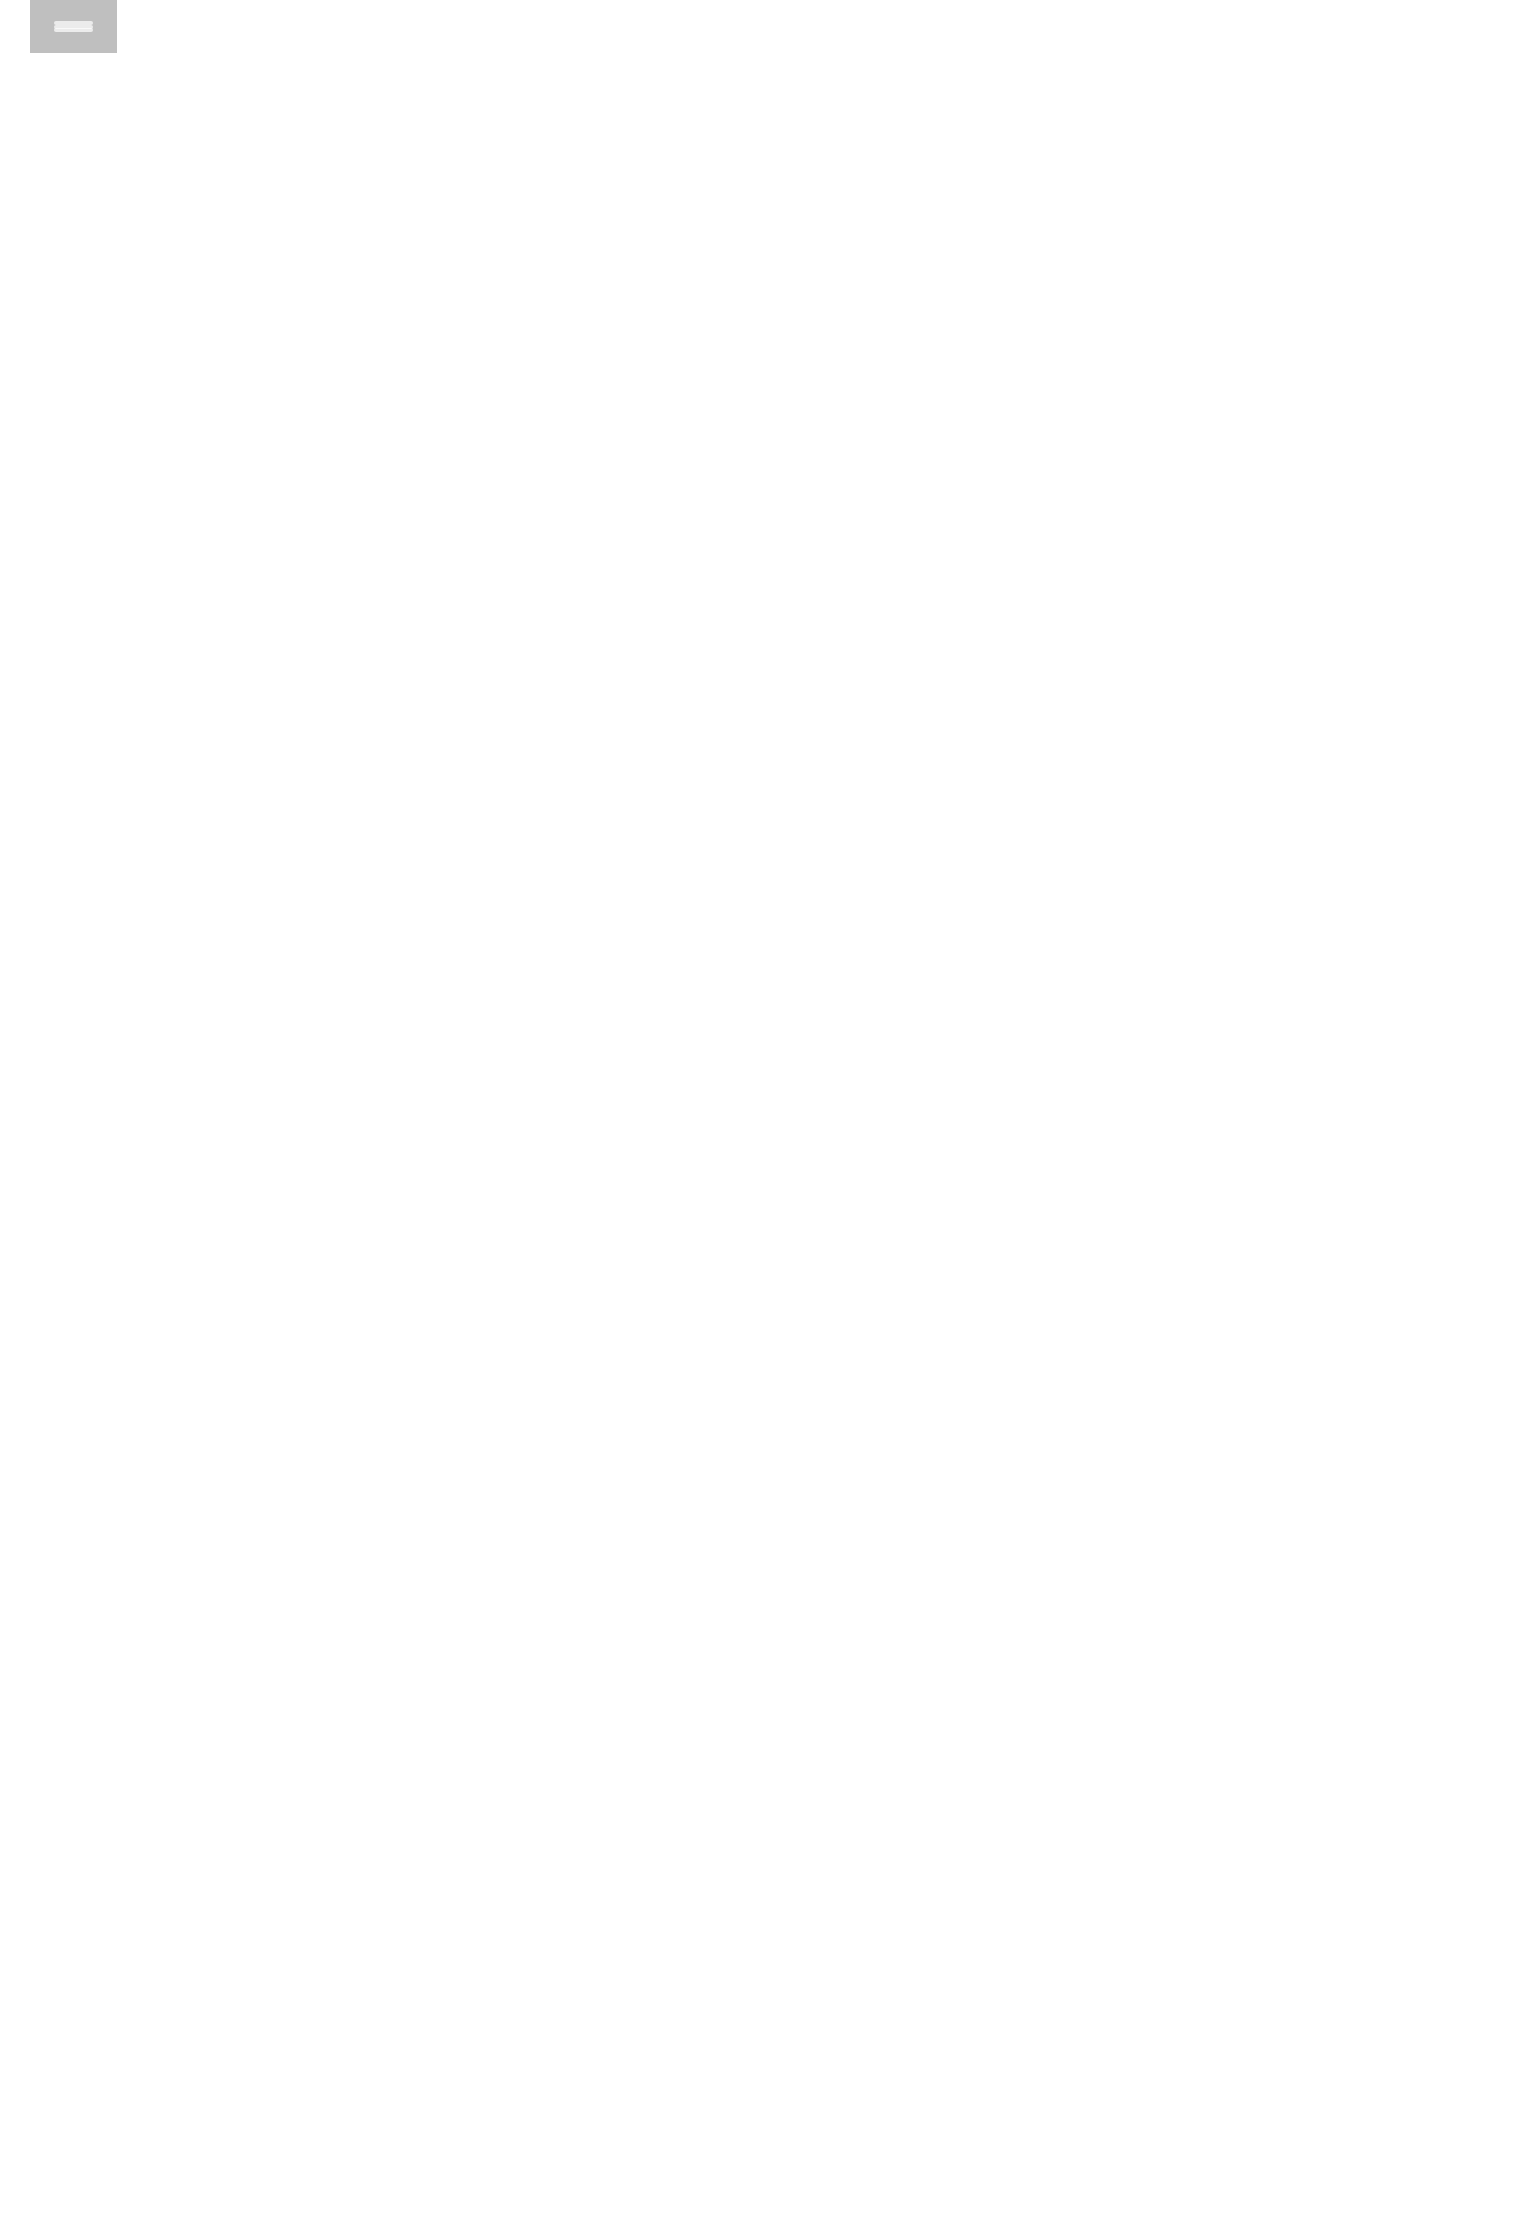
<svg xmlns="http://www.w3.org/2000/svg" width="1518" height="2213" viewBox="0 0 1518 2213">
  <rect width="100%" height="100%" fill="#fff"/>
  <rect x="30" y="0" width="87" height="53" fill="#bfbfbf"/>
  <rect x="54" y="21" width="39" height="4" rx="2" fill="#ececec"/>
  <rect x="54" y="25" width="39" height="4" rx="2" fill="#ececec"/>
  <rect x="54" y="28" width="39" height="4" rx="2" fill="#ffffffb3"/>
</svg>
